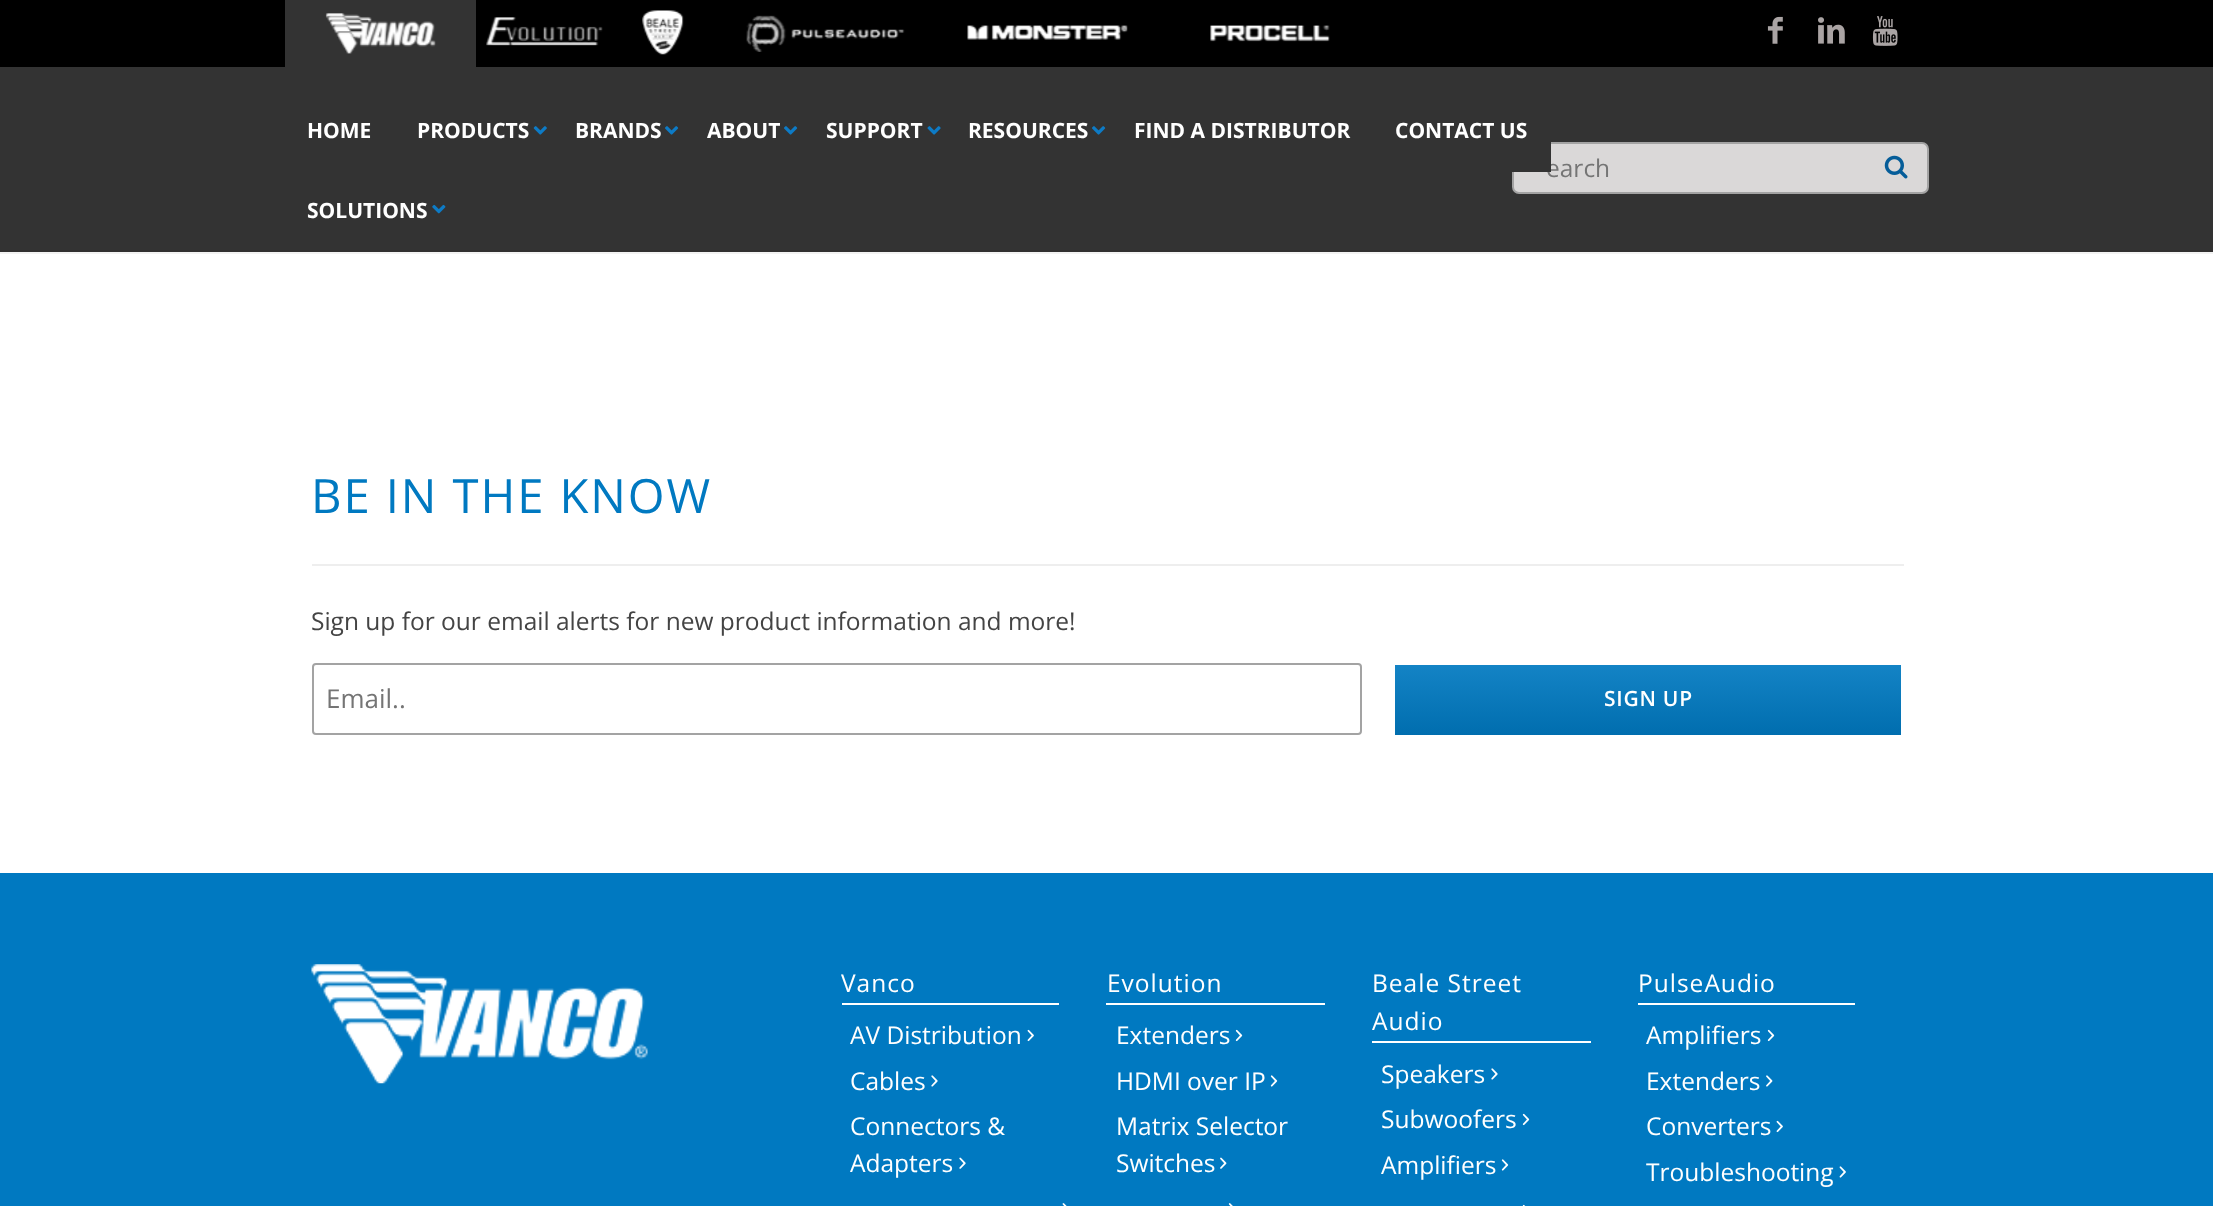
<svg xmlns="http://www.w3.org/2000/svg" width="2213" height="1206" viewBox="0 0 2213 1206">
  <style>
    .t1 { font: bold 21px Open Sans; fill: #fff; }
    .t2 { font: 24.5px Open Sans; fill: #757575; }
    .t3 { font: 47.25px Open Sans; letter-spacing: 1.9px; fill: #0079c1; }
    .t4 { font: 24.5px Open Sans; fill: #444; }
    .t5 { font: 26px Open Sans; fill: #757575; }
    .t6 { font: 600 21px Open Sans; letter-spacing: 0.75px; fill: #fff; }
    .t7 { font: 24.5px Open Sans; letter-spacing: 1px; fill: #fff; }
    .t8 { font: 24.5px Open Sans; fill: #fff; }
  </style>
  <defs>
    <linearGradient id="g1" gradientUnits="userSpaceOnUse" x1="1648" y1="663" x2="1648" y2="737"><stop offset="0" stop-color="#1484c6"/><stop offset="1" stop-color="#006dae"/></linearGradient>
  </defs>
  <rect width="100%" height="100%" fill="#fff"/>
  <rect x="-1" y="-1" width="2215" height="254" fill="none" stroke="#f2f2f2" stroke-width="2"/>
  <rect x="0" y="0" width="2213" height="67" fill="#000"/>
  <rect x="285" y="0" width="191" height="67" fill="#333"/>
  <image x="325" y="13" width="111" height="41" href="images/1.png"/>
  <image x="486" y="17" width="117" height="29" href="images/2.png"/>
  <image x="642" y="10" width="42" height="45" href="images/3.png"/>
  <image x="746" y="15" width="159" height="37" href="images/4.png"/>
  <image x="967" y="25" width="161" height="15" href="images/5.png"/>
  <image x="1210" y="25" width="120" height="17" href="images/6.png"/>
  <image x="1767" y="16" width="16" height="28" href="images/7.png"/>
  <image x="1818" y="17" width="27" height="27" href="images/8.png"/>
  <image x="1872" y="16" width="26" height="30" href="images/9.png"/>
  <rect x="0" y="67" width="2213" height="183" fill="#333"/>
  <rect x="0" y="250" width="2213" height="2" fill="#312f30"/>
  <text x="307" y="138" class="t1">HOME</text>
  <text x="417" y="138" class="t1">PRODUCTS</text>
  <image x="533" y="126" width="14" height="9" href="images/10.png"/>
  <text x="575" y="138" class="t1">BRANDS</text>
  <image x="665" y="126" width="14" height="9" href="images/11.png"/>
  <text x="707" y="138" class="t1">ABOUT</text>
  <image x="784" y="126" width="14" height="9" href="images/11.png"/>
  <text x="826" y="138" class="t1">SUPPORT</text>
  <image x="927" y="126" width="14" height="9" href="images/12.png"/>
  <text x="968" y="138" class="t1">RESOURCES</text>
  <image x="1092" y="126" width="14" height="9" href="images/11.png"/>
  <text x="1134" y="138" class="t1">FIND A DISTRIBUTOR</text>
  <rect x="1513" y="143" width="415" height="50" rx="6" fill="#dad8d8" stroke="#a3a3a3" stroke-width="2"/>
  <text x="1546" y="177" class="t2">earch</text>
  <rect x="1512" y="142" width="39" height="30" fill="#333"/>
  <text x="1395" y="138" class="t1">CONTACT US</text>
  <text x="307" y="218" class="t1">SOLUTIONS</text>
  <image x="432" y="204" width="14" height="10" href="images/13.png"/>
  <image x="1884" y="155" width="24" height="24" href="images/14.png"/>
  <text x="311" y="513" class="t3">BE IN THE KNOW</text>
  <rect x="312" y="564" width="1592" height="2" fill="#eee"/>
  <text x="311" y="630" class="t4">Sign up for our email alerts for new product information and more!</text>
  <rect x="313" y="664" width="1048" height="70" rx="3" fill="none" stroke="#a3a3a3" stroke-width="2"/>
  <text x="326" y="708" class="t5">Email..</text>
  <rect x="1395" y="665" width="506" height="70" fill="url(#g1)"/>
  <text x="1604" y="706" class="t6">SIGN UP</text>
  <rect x="0" y="873" width="2213" height="333" fill="#0079c1"/>
  <image x="311" y="964" width="337" height="120" href="images/15.png"/>
  <rect x="842" y="1003" width="217" height="2" fill="#fff"/>
  <text x="841" y="992" class="t7">Vanco</text>
  <text x="850" y="1044" class="t8">AV Distribution</text>
  <image x="1027" y="1029" width="7" height="13" href="images/16.png"/>
  <text x="850" y="1090" class="t8">Cables</text>
  <image x="931" y="1075" width="7" height="12" href="images/17.png"/>
  <text x="850" y="1135" class="t8">Connectors &amp;</text>
  <text x="850" y="1172" class="t8">Adapters</text>
  <image x="959" y="1157" width="7" height="12" href="images/18.png"/>
  <image x="1062" y="1203" width="5" height="3" href="images/19.png"/>
  <rect x="1106" y="1003" width="219" height="2" fill="#fff"/>
  <text x="1107" y="992" class="t7">Evolution</text>
  <text x="1116" y="1044" class="t8">Extenders</text>
  <image x="1235" y="1029" width="8" height="13" href="images/20.png"/>
  <text x="1116" y="1090" class="t8">HDMI over IP</text>
  <image x="1270" y="1075" width="8" height="12" href="images/21.png"/>
  <text x="1116" y="1135" class="t8">Matrix Selector</text>
  <text x="1116" y="1172" class="t8">Switches</text>
  <image x="1220" y="1157" width="7" height="12" href="images/22.png"/>
  <image x="1228" y="1203" width="5" height="3" href="images/23.png"/>
  <rect x="1372" y="1041" width="219" height="2" fill="#fff"/>
  <text x="1372" y="992" class="t7">Beale Street</text>
  <text x="1372" y="1030" class="t7">Audio</text>
  <text x="1381" y="1083" class="t8">Speakers</text>
  <image x="1491" y="1068" width="7" height="12" href="images/17.png"/>
  <text x="1381" y="1128" class="t8">Subwoofers</text>
  <image x="1522" y="1113" width="8" height="13" href="images/20.png"/>
  <text x="1381" y="1174" class="t8">Amplifiers</text>
  <image x="1501" y="1159" width="8" height="12" href="images/21.png"/>
  <image x="1522" y="1204" width="3" height="2" href="images/24.png"/>
  <rect x="1638" y="1003" width="217" height="2" fill="#fff"/>
  <text x="1638" y="992" class="t7">PulseAudio</text>
  <text x="1646" y="1044" class="t8">Amplifiers</text>
  <image x="1767" y="1029" width="8" height="13" href="images/20.png"/>
  <text x="1646" y="1090" class="t8">Extenders</text>
  <image x="1766" y="1075" width="7" height="12" href="images/25.png"/>
  <text x="1646" y="1135" class="t8">Converters</text>
  <image x="1776" y="1120" width="7" height="13" href="images/16.png"/>
  <text x="1646" y="1181" class="t8">Troubleshooting</text>
  <image x="1839" y="1166" width="7" height="12" href="images/26.png"/>
</svg>
